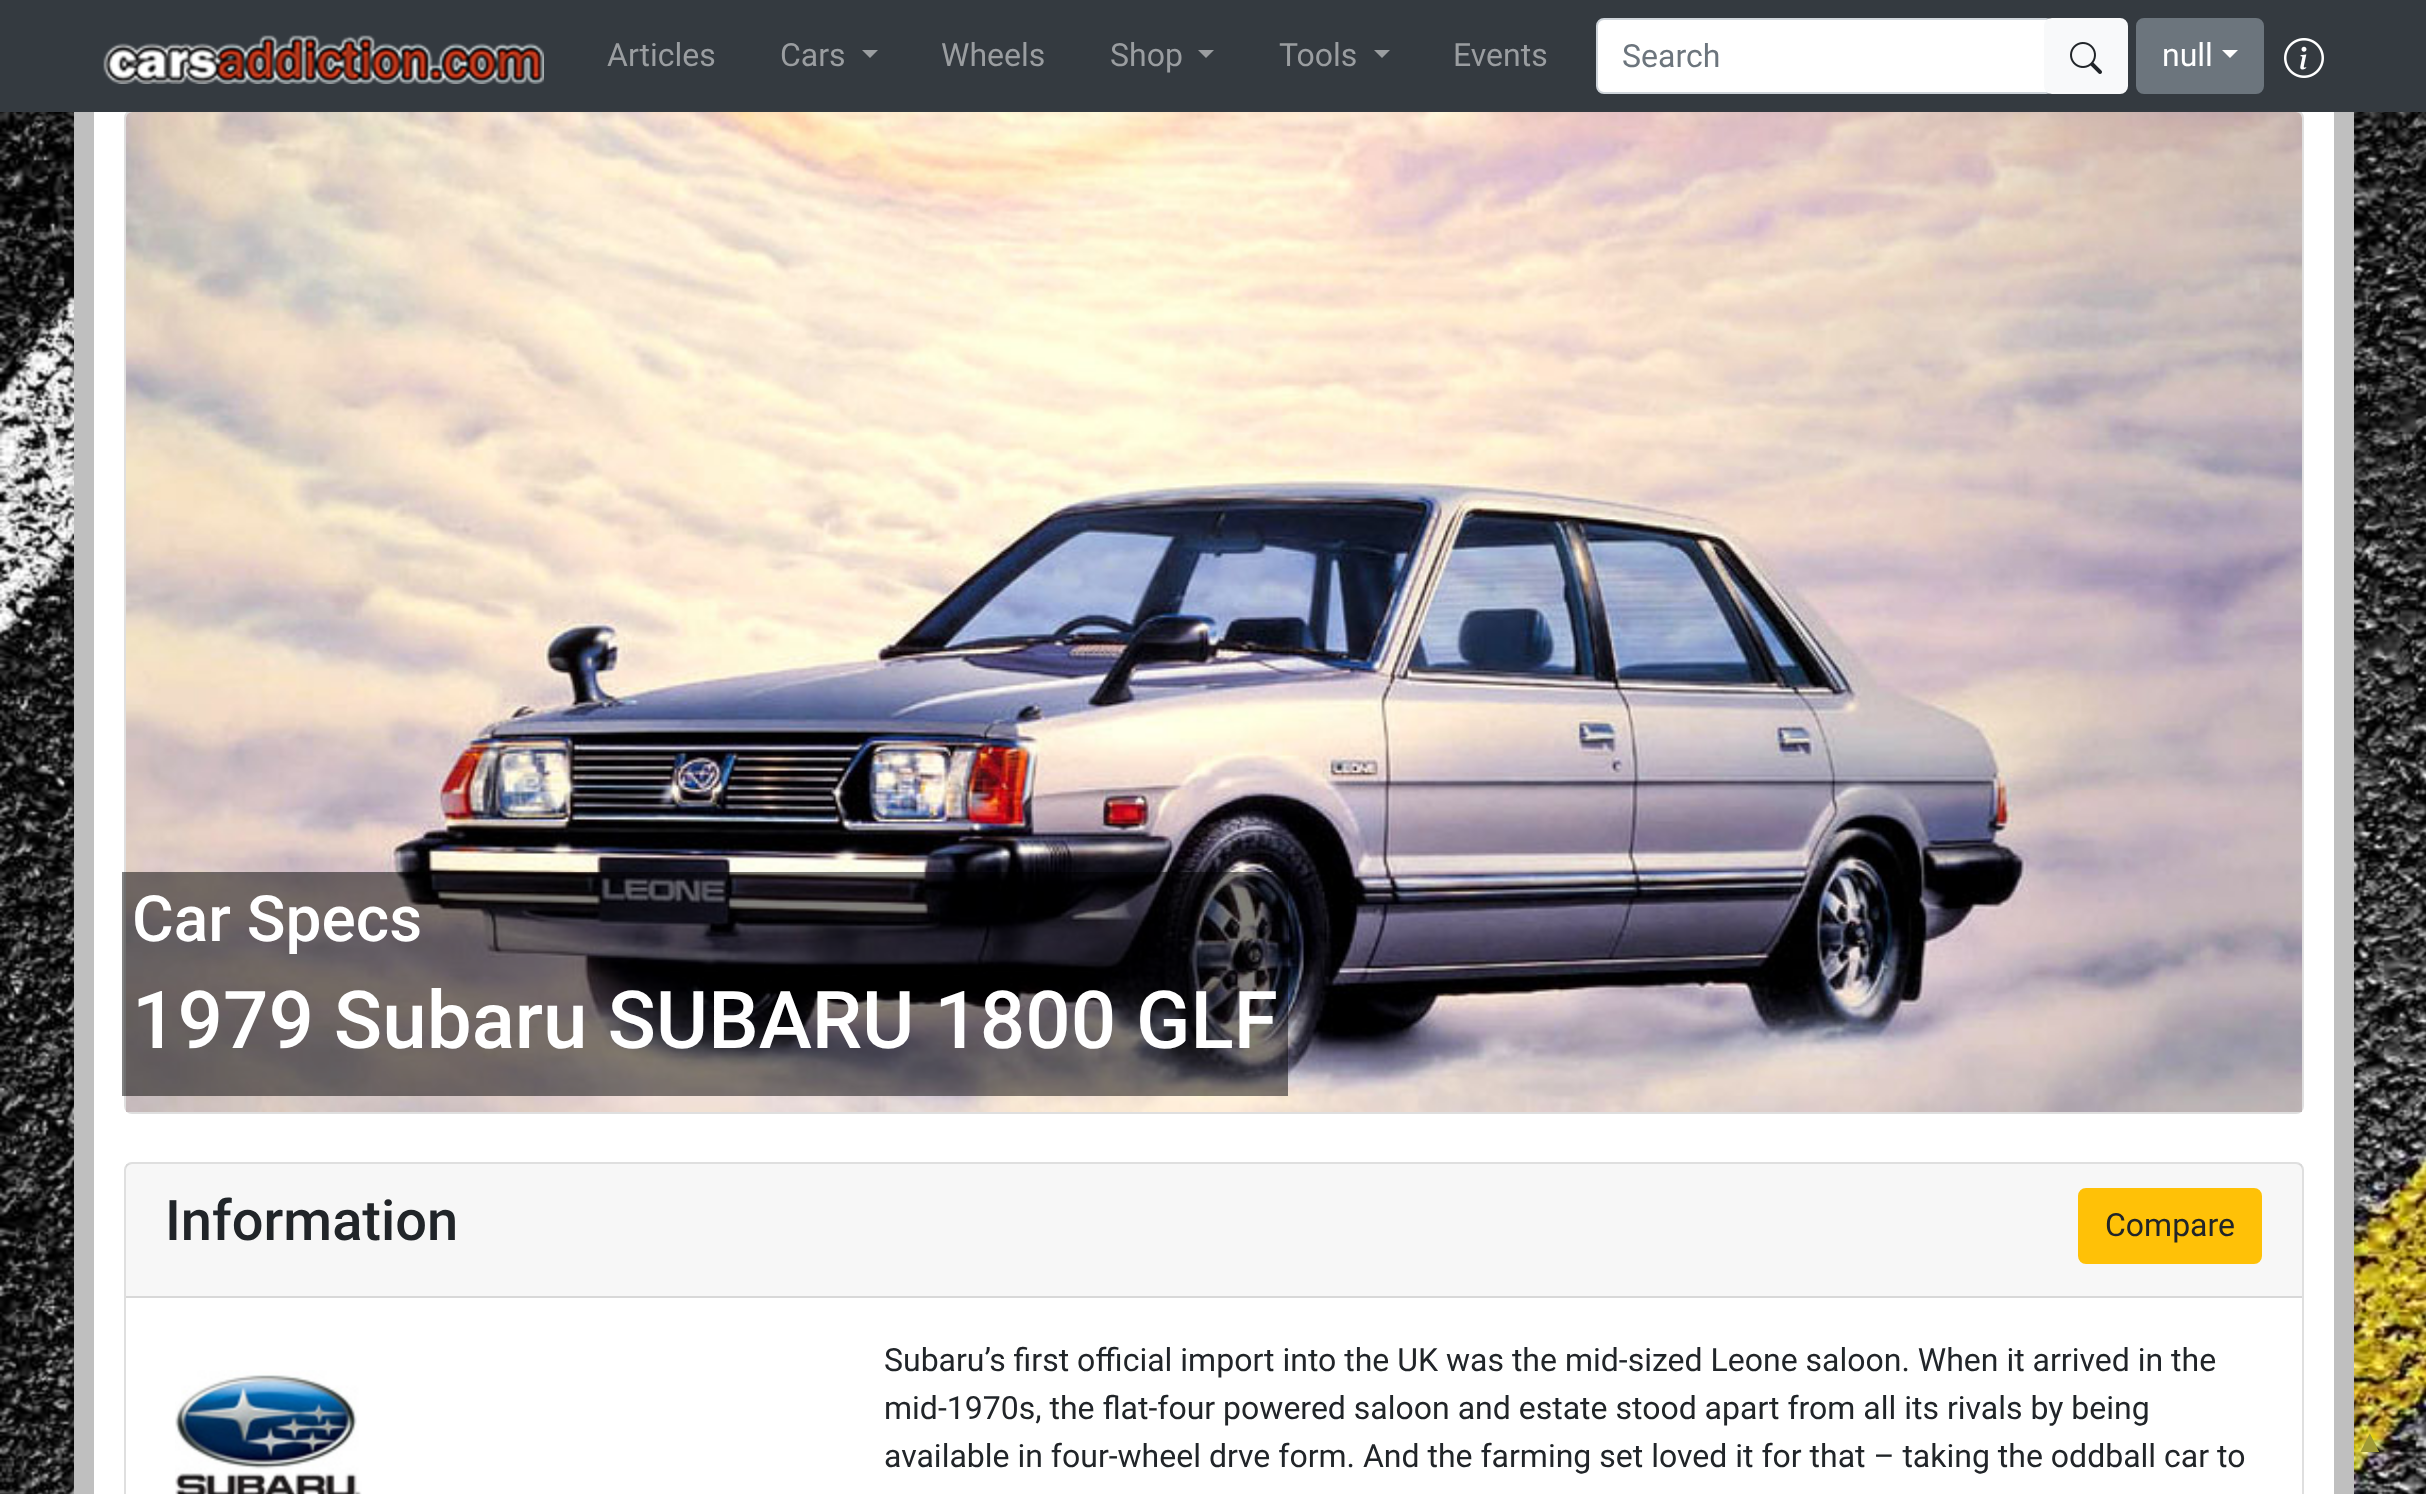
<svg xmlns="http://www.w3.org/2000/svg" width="2426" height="1494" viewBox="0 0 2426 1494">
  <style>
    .t1 { font: 32px Roboto; fill: #9a9da0; }
    .t2 { font: 32px Roboto; fill: #6c757d; }
    .t3 { font: 32px Roboto; fill: #fff; }
    .t4 { font: 500 64px Roboto; fill: #fff; }
    .t5 { font: 500 80px Roboto; fill: #fff; }
    .t6 { font: 500 56px Roboto; fill: #212529; }
    .t7 { font: 32px Roboto; fill: #212529; }
    .t8 { font: bold 32px Liberation Sans; fill: #9f9a36; }
  </style>
  <rect width="100%" height="100%" fill="#fff"/>
  <image x="0" y="112" width="2426" height="1382" href="images/1.png"/>
  <rect x="94" y="112" width="2240" height="1382" fill="#fff"/>
  <rect x="125" y="111" width="2178" height="1002" rx="7" fill="none" stroke="#dfdfdf" stroke-width="2"/>
  <rect x="0" y="0" width="2426" height="112" fill="#343a40"/>
  <image x="103" y="35" width="441" height="49" href="images/2.png"/>
  <text x="607" y="66" class="t1">Articles</text>
  <text x="780" y="66" class="t1">Cars</text>
  <path d="M862 50H878L870 58Z" fill="#9a9da0"/>
  <text x="941" y="66" class="t1">Wheels</text>
  <text x="1110" y="66" class="t1">Shop</text>
  <path d="M1198 50H1214L1206 58Z" fill="#9a9da0"/>
  <text x="1279" y="66" class="t1">Tools</text>
  <path d="M1374 50H1390L1382 58Z" fill="#9a9da0"/>
  <text x="1453" y="66" class="t1">Events</text>
  <rect x="1597" y="19" width="456" height="74" rx="7" fill="#fff" stroke="#ced4da" stroke-width="2"/>
  <text x="1622" y="67" class="t2">Search</text>
  <rect x="2045" y="19" width="82" height="74" rx="7" fill="#f8f9fa" stroke="#f8f9fa" stroke-width="2"/>
  <image x="2070" y="42" width="32" height="32" href="images/3.png"/>
  <rect x="2137" y="19" width="126" height="74" rx="7" fill="#6c757d" stroke="#6c757d" stroke-width="2"/>
  <text x="2162" y="66" class="t3">null</text>
  <path d="M2222 50H2238L2230 58Z" fill="#fff"/>
  <image x="2284" y="38" width="40" height="40" href="images/4.png"/>
  <rect x="2334" y="112" width="20" height="1382" fill="#bfbfbf"/>
  <rect x="74" y="112" width="20" height="1382" fill="#bfbfbf"/>
  <image x="126" y="112" width="2176" height="1000" href="images/5.png"/>
  <rect x="122" y="872" width="1166" height="224" fill="#00000080"/>
  <text x="132" y="941" class="t4">Car Specs</text>
  <text x="132" y="1048" class="t5">1979 Subaru SUBARU 1800 GLF</text>
  <rect x="125" y="1163" width="2178" height="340" rx="7" fill="none" stroke="#dfdfdf" stroke-width="2"/>
  <rect x="126" y="1164" width="2176" height="132" fill="#00000008"/>
  <rect x="126" y="1296" width="2176" height="2" fill="#d8d8d8"/>
  <text x="165" y="1240" class="t6">Information</text>
  <rect x="2079" y="1189" width="182" height="74" rx="7" fill="#ffc107" stroke="#ffc107" stroke-width="2"/>
  <text x="2105" y="1236" class="t7">Compare</text>
  <image x="175" y="1370" width="187" height="124" href="images/6.png"/>
  <text x="884" y="1371" class="t7">Subaru’s first official import into the UK was the mid-sized Leone saloon. When it arrived in the</text>
  <text x="884" y="1419" class="t7">mid-1970s, the flat-four powered saloon and estate stood apart from all its rivals by being</text>
  <text x="884" y="1467" class="t7">available in four-wheel drve form. And the farming set loved it for that – taking the oddball car to</text>
  <text x="2354" y="1452" class="t8">▲</text>
</svg>
